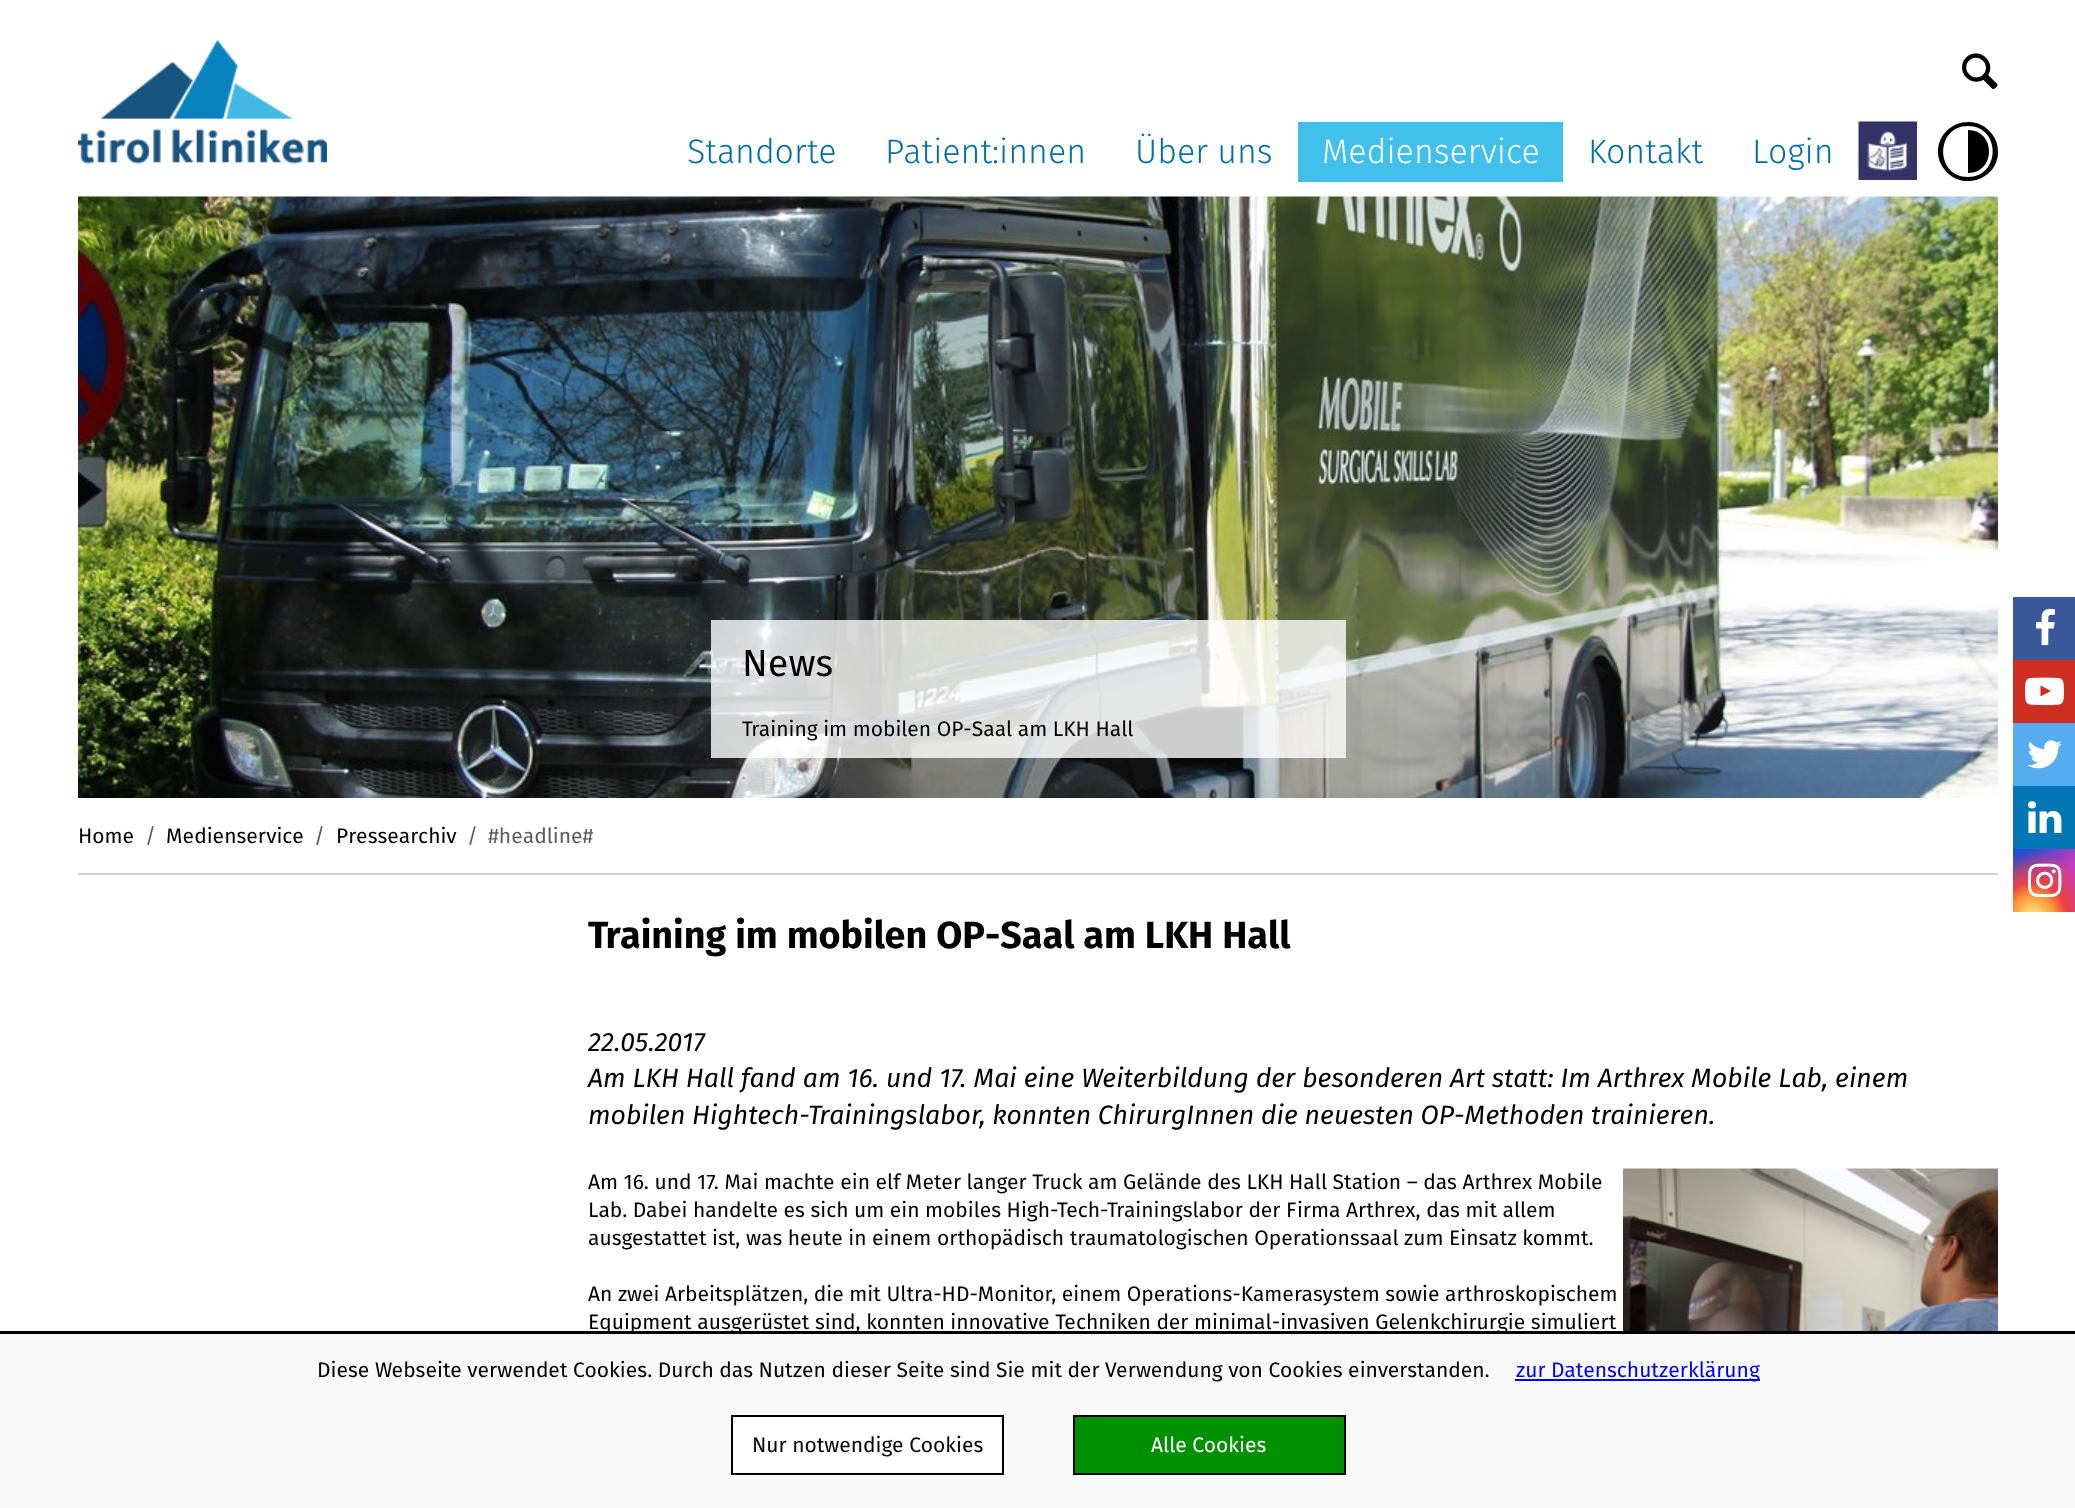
<svg xmlns="http://www.w3.org/2000/svg" width="2075" height="1508" viewBox="0 0 2075 1508">
  <style>
    .t1 { font: 300 34px Fira Sans; fill: #036fa9; }
    .t2 { font: 300 34px Fira Sans; fill: #fff; }
    .t3 { font: 37.75px Fira Sans; fill: #000; }
    .t4 { font: 21px Fira Sans; fill: #000; }
    .t5 { font: 21px Fira Sans; fill: #5c5c5c; }
    .t6 { font: bold 37.75px Fira Sans; fill: #000; }
    .t7 { font: italic 26.6px Fira Sans; fill: #000; }
    .t8 { font: 21px Fira Sans; fill: #00e; }
    .t9 { font: 21px Fira Sans; fill: #fff; }
  </style>
  <defs>
    <linearGradient id="g1" gradientUnits="userSpaceOnUse" x1="2013" y1="849" x2="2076" y2="912"><stop offset="0.12" stop-color="#234bd7"/><stop offset="0.58" stop-color="#c33cbe"/></linearGradient>
    <radialGradient id="g2" gradientUnits="userSpaceOnUse" cx="2033" cy="916" r="79"><stop offset="0" stop-color="#ffe17d"/><stop offset="0.1" stop-color="#ffcd69"/><stop offset="0.28" stop-color="#fa9137"/><stop offset="0.42" stop-color="#eb4141"/><stop offset="0.82" stop-color="#eb4141" stop-opacity="0"/></radialGradient>
  </defs>
  <rect width="100%" height="100%" fill="#fff"/>
  <image x="78" y="40" width="249" height="124" href="images/1.png"/>
  <image x="1962" y="53" width="36" height="36" href="images/2.png"/>
  <text x="687" y="163" class="t1">Standorte</text>
  <text x="885" y="163" class="t1">Patient:innen</text>
  <text x="1135" y="163" class="t1">Über uns</text>
  <rect x="1298" y="122" width="265" height="60" fill="#41c0eb"/>
  <text x="1322" y="163" class="t2">Medienservice</text>
  <text x="1588" y="163" class="t1">Kontakt</text>
  <text x="1752" y="163" class="t1">Login</text>
  <image x="1858" y="121" width="59" height="59" href="images/3.png"/>
  <path d="M1968 130V173C1996 173 1996 130 1968 130ZM1990 152ZM1968 182ZM1998 152C1998 145 1996 139 1992 134C1975 111 1938 123 1938 152C1938 158 1940 164 1944 169C1961 192 1998 180 1998 152ZM1968 177C1935 177 1935 126 1968 126C2001 126 2001 177 1968 177Z" fill="#000"/>
  <image x="78" y="196" width="1920" height="602" href="images/4.png"/>
  <rect x="711" y="620" width="635" height="138" fill="#ffffffcc"/>
  <text x="742" y="676" class="t3">News</text>
  <text x="742" y="736" class="t4">Training im mobilen OP-Saal am LKH Hall</text>
  <rect x="78" y="873" width="1920" height="2" fill="#cfcfcf"/>
  <text x="78" y="843" class="t4">Home</text>
  <text x="145" y="843" class="t5">/</text>
  <text x="166" y="843" class="t4">Medienservice</text>
  <text x="314" y="843" class="t5">/</text>
  <text x="336" y="843" class="t4">Pressearchiv</text>
  <text x="467" y="843" class="t5">/</text>
  <text x="488" y="843" class="t5">#headline#</text>
  <text x="588" y="948" class="t6">Training im mobilen OP-Saal am LKH Hall</text>
  <text x="588" y="1051" class="t7">22.05.2017</text>
  <text x="588" y="1087" class="t7">Am LKH Hall fand am 16. und 17. Mai eine Weiterbildung der besonderen Art statt: Im Arthrex Mobile Lab, einem</text>
  <text x="588" y="1124" word-spacing="-0.25" class="t7">mobilen Hightech-Trainingslabor, konnten ChirurgInnen die neuesten OP-Methoden trainieren.</text>
  <text x="588" y="1189" class="t4">Am 16. und 17. Mai machte ein elf Meter langer Truck am Gelände des LKH Hall Station – das Arthrex Mobile</text>
  <image x="1623" y="1168" width="375" height="163" href="images/5.png"/>
  <text x="588" y="1217" class="t4">Lab. Dabei handelte es sich um ein mobiles High-Tech-Trainingslabor der Firma Arthrex, das mit allem</text>
  <text x="588" y="1245" class="t4">ausgestattet ist, was heute in einem orthopädisch traumatologischen Operationssaal zum Einsatz kommt.</text>
  <text x="588" y="1301" class="t4">An zwei Arbeitsplätzen, die mit Ultra-HD-Monitor, einem Operations-Kamerasystem sowie arthroskopischem</text>
  <text x="588" y="1329" class="t4">Equipment ausgerüstet sind, konnten innovative Techniken der minimal-invasiven Gelenkchirurgie simuliert</text>
  <rect x="2013" y="597" width="62" height="63" fill="#395799"/>
  <image x="2036" y="608" width="19" height="38" href="images/6.png"/>
  <rect x="2013" y="660" width="62" height="63" fill="#cf2e22"/>
  <image x="2025" y="677" width="39" height="29" href="images/7.png"/>
  <rect x="2013" y="723" width="62" height="63" fill="#55acee"/>
  <image x="2027" y="740" width="35" height="29" href="images/8.png"/>
  <rect x="2013" y="786" width="62" height="63" fill="#0077b5"/>
  <image x="2028" y="801" width="34" height="32" href="images/9.png"/>
  <rect x="2013" y="849" width="62" height="63" fill="url(#g1)"/>
  <rect x="2013" y="852" width="62" height="60" fill="url(#g2)"/>
  <image x="2028" y="863" width="34" height="35" href="images/10.png"/>
  <rect x="0" y="1334" width="2075" height="174" fill="#f9f9f9"/>
  <rect x="0" y="1331" width="2075" height="3" fill="#000"/>
  <text x="317" y="1377" class="t4">Diese Webseite verwendet Cookies. Durch das Nutzen dieser Seite sind Sie mit der Verwendung von Cookies einverstanden.</text>
  <rect x="1515" y="1379" width="245" height="2" fill="#00e"/>
  <text x="1516" y="1377" class="t8">zur Datenschutzerklärung</text>
  <rect x="732" y="1416" width="271" height="58" fill="#fff" stroke="#000" stroke-width="2"/>
  <text x="752" y="1452" class="t4">Nur notwendige Cookies</text>
  <rect x="1074" y="1416" width="271" height="58" fill="#019000" stroke="#000" stroke-width="2"/>
  <text x="1151" y="1452" class="t9">Alle Cookies</text>
</svg>
